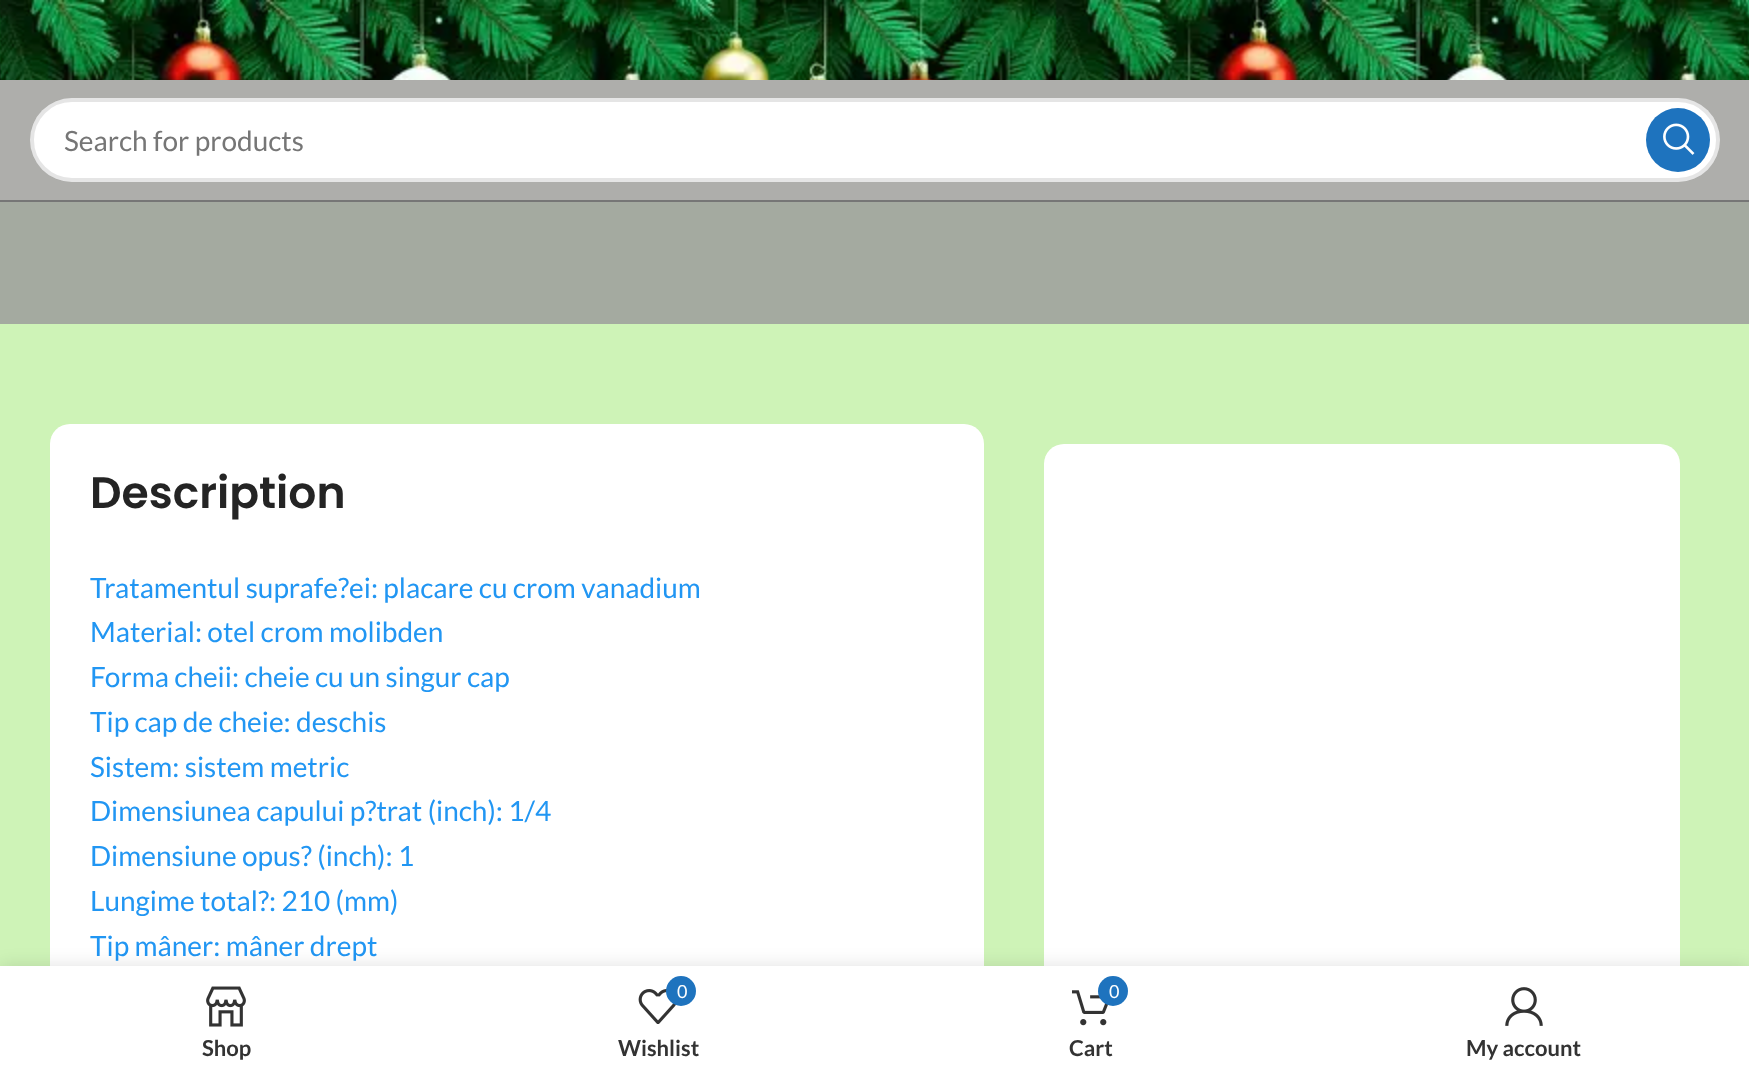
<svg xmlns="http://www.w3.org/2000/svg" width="1749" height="1075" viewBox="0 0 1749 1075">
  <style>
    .t1 { font: 28px Lato; fill: #767676; }
    .t2 { font: 600 44px Poppins; fill: #242424; }
    .t3 { font: 28px Lato; fill: #2196f3; }
    .t4 { font: bold 22px Lato; fill: #333; }
    .t5 { font: 18px Lato; fill: #fff; }
  </style>
  <rect width="100%" height="100%" fill="#cef3b7"/>
  <image x="0" y="0" width="1749" height="80" href="images/1.png"/>
  <rect x="0" y="80" width="1749" height="120" fill="#aeaeab"/>
  <rect x="0" y="200" width="1749" height="2" fill="#767676"/>
  <rect x="30" y="98" width="1690" height="84" rx="42" fill="#fff"/>
  <rect x="32" y="100" width="1686" height="80" rx="40" fill="none" stroke="#0000001a" stroke-width="4"/>
  <text x="64" y="151" class="t1">Search for products</text>
  <circle cx="1678" cy="140" r="32" fill="#1e73be"/>
  <image x="1663" y="123" width="32" height="32" href="images/2.png"/>
  <rect x="0" y="202" width="1749" height="122" fill="#a4aaa0"/>
  <rect x="50" y="424" width="934" height="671" rx="20" fill="#fff"/>
  <text x="90" y="508" class="t2">Description</text>
  <text x="90" y="598" class="t3">Tratamentul suprafe?ei: placare cu crom vanadium</text>
  <text x="90" y="642" class="t3">Material: otel crom molibden</text>
  <text x="90" y="687" class="t3">Forma cheii: cheie cu un singur cap</text>
  <text x="90" y="732" class="t3">Tip cap de cheie: deschis</text>
  <text x="90" y="777" class="t3">Sistem: sistem metric</text>
  <text x="90" y="821" class="t3">Dimensiunea capului p?trat (inch): 1/4</text>
  <text x="90" y="866" class="t3">Dimensiune opus? (inch): 1</text>
  <text x="90" y="911" class="t3">Lungime total?: 210 (mm)</text>
  <text x="90" y="956" class="t3">Tip mâner: mâner drept</text>
  <rect x="1044" y="444" width="636" height="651" rx="20" fill="#fff"/>
  <rect x="0" y="966" width="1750" height="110" fill="#0000001f" filter="blur(9px)"/>
  <rect x="0" y="966" width="1749" height="109" fill="#fff"/>
  <image x="206" y="986" width="40" height="41" href="images/3.png"/>
  <text x="202" y="1056" class="t4">Shop</text>
  <image x="638" y="989" width="38" height="35" href="images/4.png"/>
  <circle cx="681" cy="991" r="15" fill="#1e73be"/>
  <text x="677" y="998" class="t5">0</text>
  <text x="618" y="1056" class="t4">Wishlist</text>
  <image x="1072" y="990" width="36" height="36" href="images/5.png"/>
  <circle cx="1113" cy="991" r="15" fill="#1e73be"/>
  <text x="1109" y="998" class="t5">0</text>
  <text x="1069" y="1056" class="t4">Cart</text>
  <image x="1505" y="987" width="38" height="39" href="images/6.png"/>
  <text x="1466" y="1056" class="t4">My account</text>
</svg>
